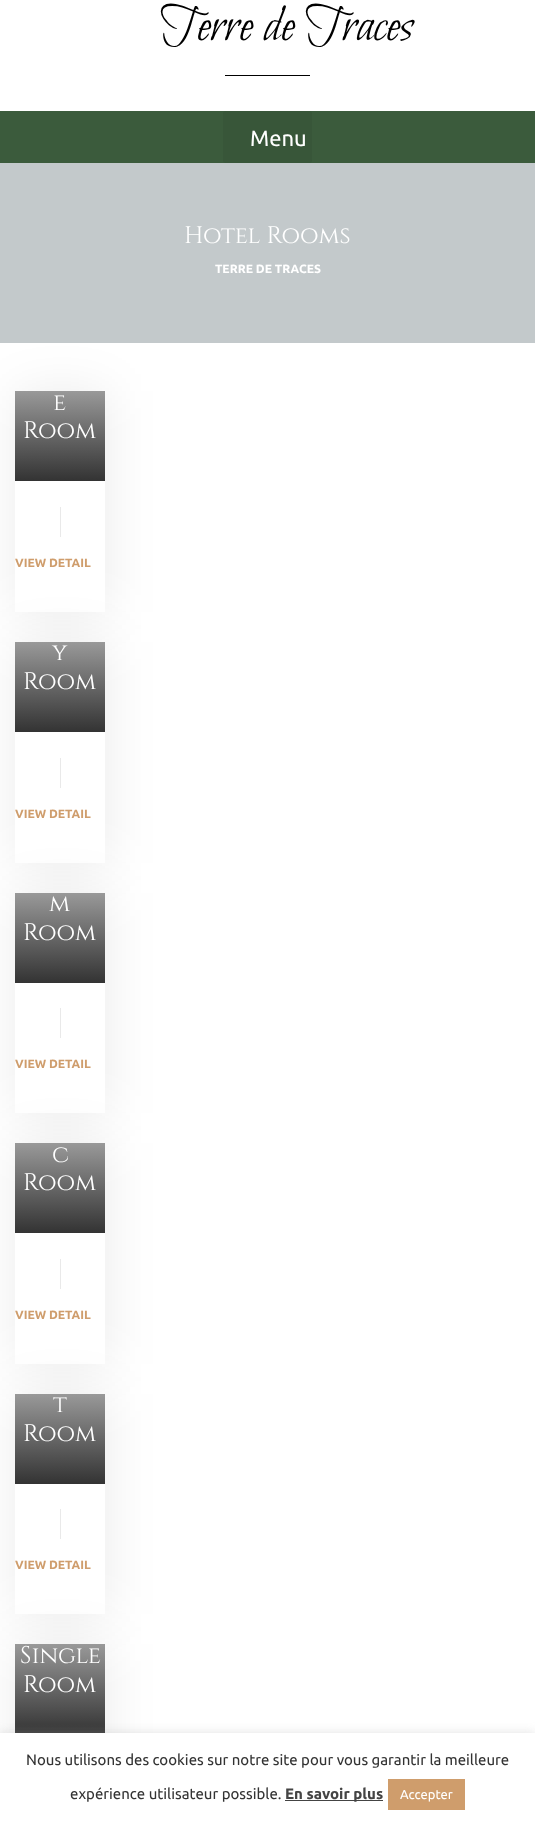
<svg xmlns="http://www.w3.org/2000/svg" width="535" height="1822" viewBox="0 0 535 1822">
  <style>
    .t1 { font: 53px Bilbo Swash Caps; fill: #000; }
    .t2 { font: 22px Ubuntu; fill: #fff; }
    .t3 { font: 24px Cinzel; fill: #fff; }
    .t4 { font: bold 12px Ubuntu; fill: #fff; }
    .t5 { font: bold 12px Ubuntu; fill: #cf9d6c; }
    .t6 { font: 15px Ubuntu; fill: #333; }
    .t7 { font: bold 15px Ubuntu; fill: #444; }
    .t8 { font: 13px Ubuntu; fill: #fff; }
  </style>
  <defs>
    <clipPath id="clip1"><path d="M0 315H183V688H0ZM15 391H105V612H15Z" clip-rule="evenodd"/></clipPath>
    <linearGradient id="g1" gradientUnits="userSpaceOnUse" x1="60" y1="301" x2="60" y2="481"><stop offset="0" stop-color="#fff"/><stop offset="1" stop-color="#333"/></linearGradient>
    <linearGradient id="g2" gradientUnits="userSpaceOnUse" x1="60" y1="552" x2="60" y2="732"><stop offset="0" stop-color="#fff"/><stop offset="1" stop-color="#333"/></linearGradient>
    <linearGradient id="g3" gradientUnits="userSpaceOnUse" x1="60" y1="803" x2="60" y2="983"><stop offset="0" stop-color="#fff"/><stop offset="1" stop-color="#333"/></linearGradient>
    <linearGradient id="g4" gradientUnits="userSpaceOnUse" x1="60" y1="1053" x2="60" y2="1233"><stop offset="0" stop-color="#fff"/><stop offset="1" stop-color="#333"/></linearGradient>
    <linearGradient id="g5" gradientUnits="userSpaceOnUse" x1="60" y1="1304" x2="60" y2="1484"><stop offset="0" stop-color="#fff"/><stop offset="1" stop-color="#333"/></linearGradient>
    <linearGradient id="g6" gradientUnits="userSpaceOnUse" x1="60" y1="1554" x2="60" y2="1734"><stop offset="0" stop-color="#fff"/><stop offset="1" stop-color="#333"/></linearGradient>
  </defs>
  <rect width="100%" height="100%" fill="#fff"/>
  <text x="160" y="40" class="t1">Terre de Traces</text>
  <rect x="225" y="75" width="85" height="1" fill="#000"/>
  <rect x="0" y="111" width="535" height="52" fill="#3b5b3c"/>
  <rect x="223" y="111" width="89" height="52" rx="3" fill="#385639"/>
  <text x="250" y="146" class="t2">Menu</text>
  <g clip-path="url(#clip1)">
    <rect x="17" y="391" width="90" height="221" fill="#00000014" filter="blur(25px)"/>
  </g>
  <rect x="0" y="163" width="535" height="180" fill="#c3c9cb"/>
  <text x="184" y="243" class="t3">Hotel Rooms</text>
  <text x="215" y="273" class="t4">TERRE DE TRACES</text>
  <rect x="15" y="391" width="90" height="90" fill="url(#g1)"/>
  <text x="53" y="410" class="t3">e</text>
  <text x="23" y="438" class="t3">Room</text>
  <rect x="60" y="507" width="1" height="30" fill="#e9e9e9"/>
  <text x="15" y="567" class="t5">VIEW DETAIL</text>
  <rect x="17" y="642" width="90" height="221" fill="#00000014" filter="blur(25px)"/>
  <rect x="15" y="732" width="90" height="131" fill="#fff"/>
  <rect x="15" y="642" width="90" height="90" fill="url(#g2)"/>
  <text x="52" y="660" class="t3">y</text>
  <text x="23" y="689" class="t3">Room</text>
  <rect x="60" y="758" width="1" height="30" fill="#e9e9e9"/>
  <text x="15" y="818" class="t5">VIEW DETAIL</text>
  <rect x="17" y="893" width="90" height="220" fill="#00000014" filter="blur(25px)"/>
  <rect x="15" y="983" width="90" height="130" fill="#fff"/>
  <rect x="15" y="893" width="90" height="90" fill="url(#g3)"/>
  <text x="49" y="911" class="t3">m</text>
  <text x="23" y="940" class="t3">Room</text>
  <rect x="60" y="1008" width="1" height="30" fill="#e9e9e9"/>
  <text x="15" y="1068" class="t5">VIEW DETAIL</text>
  <rect x="17" y="1143" width="90" height="221" fill="#00000014" filter="blur(25px)"/>
  <rect x="15" y="1233" width="90" height="131" fill="#fff"/>
  <rect x="15" y="1143" width="90" height="90" fill="url(#g4)"/>
  <text x="52" y="1162" class="t3">c</text>
  <text x="23" y="1190" class="t3">Room</text>
  <rect x="60" y="1259" width="1" height="30" fill="#e9e9e9"/>
  <text x="15" y="1319" class="t5">VIEW DETAIL</text>
  <rect x="17" y="1394" width="90" height="220" fill="#00000014" filter="blur(25px)"/>
  <rect x="15" y="1484" width="90" height="130" fill="#fff"/>
  <rect x="15" y="1394" width="90" height="90" fill="url(#g5)"/>
  <text x="53" y="1412" class="t3">t</text>
  <text x="23" y="1441" class="t3">Room</text>
  <rect x="60" y="1509" width="1" height="30" fill="#e9e9e9"/>
  <text x="15" y="1569" class="t5">VIEW DETAIL</text>
  <rect x="17" y="1644" width="90" height="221" fill="#00000014" filter="blur(25px)"/>
  <rect x="15" y="1644" width="90" height="89" fill="url(#g6)"/>
  <text x="20" y="1663" class="t3">Single</text>
  <text x="23" y="1692" class="t3">Room</text>
  <rect x="0" y="1732" width="535" height="89" fill="#acabab4d" filter="blur(5px)"/>
  <rect x="0" y="1733" width="535" height="89" fill="#fff"/>
  <text x="26" y="1765" class="t6">Nous utilisons des cookies sur notre site pour vous garantir la meilleure</text>
  <text x="70" y="1799" class="t6">expérience utilisateur possible.</text>
  <rect x="285" y="1800" width="98" height="1" fill="#444"/>
  <text x="285" y="1799" class="t7">En savoir plus</text>
  <rect x="388" y="1779" width="77" height="31" fill="#cf9d6c"/>
  <text x="400" y="1799" class="t8">Accepter</text>
</svg>
